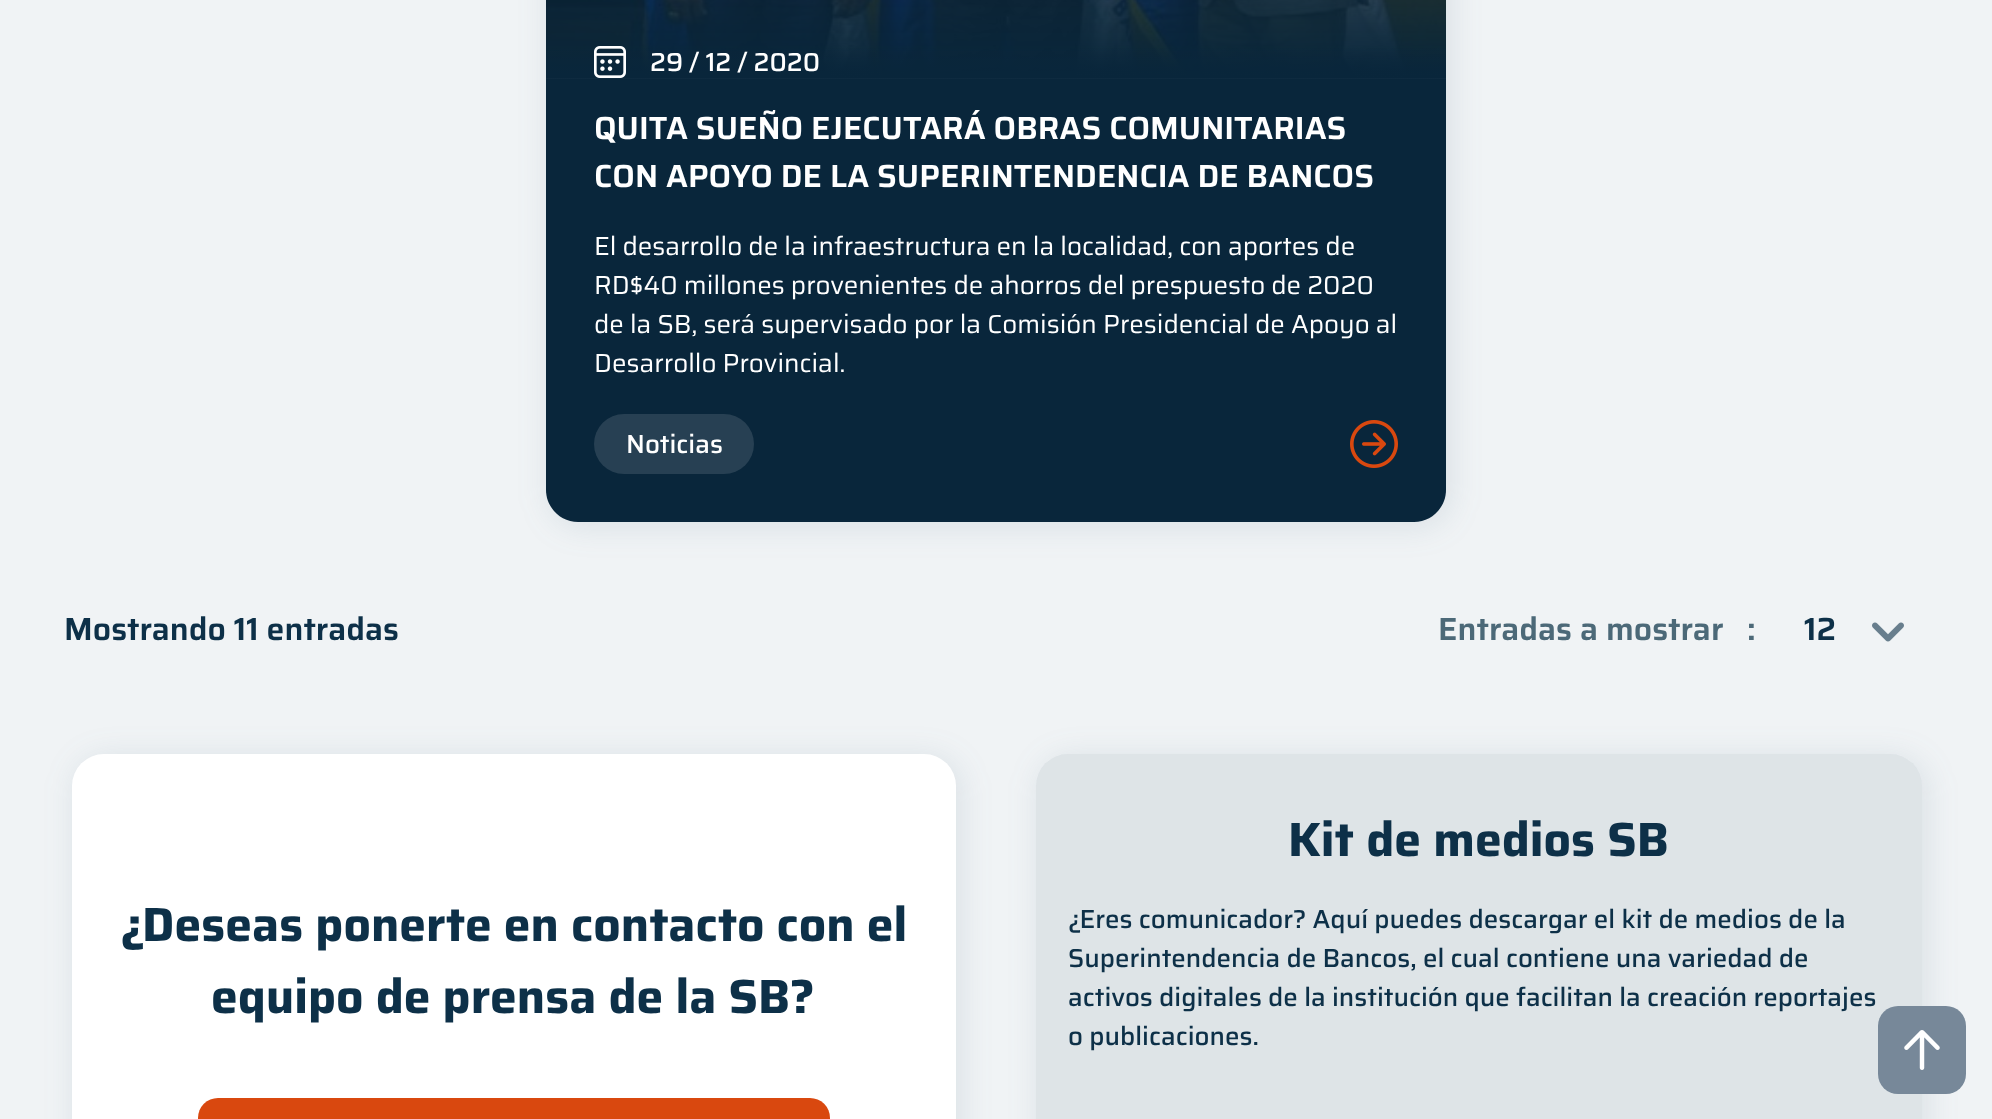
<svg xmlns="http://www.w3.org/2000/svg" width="1992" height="1119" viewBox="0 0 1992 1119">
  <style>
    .t1 { font: 500 26px Saira; fill: #fff; }
    .t2 { font: 600 32px Saira; fill: #fff; }
    .t3 { font: 26px Saira; fill: #fff; }
    .t4 { font: 600 32px Saira; fill: #0d3048; }
    .t5 { font: 600 32px Saira; fill: #4c6978; }
    .t6 { font: bold 48px Saira; fill: #0d3048; }
    .t7 { font: 500 26px Saira; fill: #0d3048; }
  </style>
  <defs>
    <linearGradient id="g1" gradientUnits="userSpaceOnUse" x1="996" y1="46" x2="996" y2="522"><stop offset="0" stop-color="#09263b" stop-opacity="0"/><stop offset="0.07" stop-color="#09263b"/><stop offset="1" stop-color="#09263b"/></linearGradient>
    <clipPath id="clip1"><path d="M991 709H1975V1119H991ZM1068 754H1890C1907.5 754 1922 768.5 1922 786V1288C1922 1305.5 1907.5 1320 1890 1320H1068C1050.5 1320 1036 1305.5 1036 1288V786C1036 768.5 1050.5 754 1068 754Z" clip-rule="evenodd"/></clipPath>
  </defs>
  <rect width="100%" height="100%" fill="#f0f3f5"/>
  <rect x="550" y="-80" width="900" height="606" rx="32" fill="#4d748524" filter="blur(16px)"/>
  <image x="546" y="0" width="900" height="78" href="images/1.png"/>
  <path d="M546 46H1446V490C1446 507.5 1431.5 522 1414 522H578C560.5 522 546 507.5 546 490Z" fill="url(#g1)"/>
  <image x="594" y="46" width="32" height="32" href="images/2.png"/>
  <text x="650" y="71" class="t1">29 / 12 / 2020</text>
  <text x="594" y="139" class="t2">QUITA SUEÑO EJECUTARÁ OBRAS COMUNITARIAS</text>
  <text x="594" y="187" class="t2">CON APOYO DE LA SUPERINTENDENCIA DE BANCOS</text>
  <text x="594" y="255" class="t3">El desarrollo de la infraestructura en la localidad, con aportes de</text>
  <text x="594" y="294" class="t3">RD$40 millones provenientes de ahorros del prespuesto de 2020</text>
  <text x="594" y="333" class="t3">de la SB, será supervisado por la Comisión Presidencial de Apoyo al</text>
  <text x="594" y="372" class="t3">Desarrollo Provincial.</text>
  <rect x="594" y="414" width="160" height="60" rx="30" fill="#274053"/>
  <text x="626" y="453" class="t1">Noticias</text>
  <image x="1350" y="420" width="48" height="48" href="images/3.png"/>
  <text x="64" y="640" class="t4">Mostrando 11 entradas</text>
  <text x="1438" y="640" class="t5">Entradas a mostrar</text>
  <text x="1747" y="640" class="t5">:</text>
  <text x="1804" y="640" class="t4">12</text>
  <image x="1872" y="622" width="32" height="20" href="images/4.png"/>
  <rect x="76" y="758" width="884" height="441" rx="32" fill="#4d748524" filter="blur(16px)"/>
  <rect x="72" y="754" width="884" height="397" rx="32" fill="#fff"/>
  <text x="120" y="941" class="t6">¿Deseas ponerte en contacto con el</text>
  <text x="211" y="1013" class="t6">equipo de prensa de la SB?</text>
  <rect x="198" y="1098" width="632" height="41" rx="20" fill="#d9480f"/>
  <g clip-path="url(#clip1)">
    <rect x="1040" y="758" width="886" height="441" rx="32" fill="#4d748524" filter="blur(16px)"/>
  </g>
  <rect x="1036" y="754" width="886" height="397" rx="32" fill="#0d304814"/>
  <text x="1288" y="856" class="t6">Kit de medios SB</text>
  <text x="1068" y="928" class="t7">¿Eres comunicador? Aquí puedes descargar el kit de medios de la</text>
  <text x="1068" y="967" class="t7">Superintendencia de Bancos, el cual contiene una variedad de</text>
  <text x="1068" y="1006" class="t7">activos digitales de la institución que facilitan la creación reportajes</text>
  <text x="1068" y="1045" class="t7">o publicaciones.</text>
  <rect x="1878" y="1006" width="88" height="88" rx="20" fill="#789"/>
  <image x="1904" y="1030" width="36" height="40" href="images/5.png"/>
</svg>
